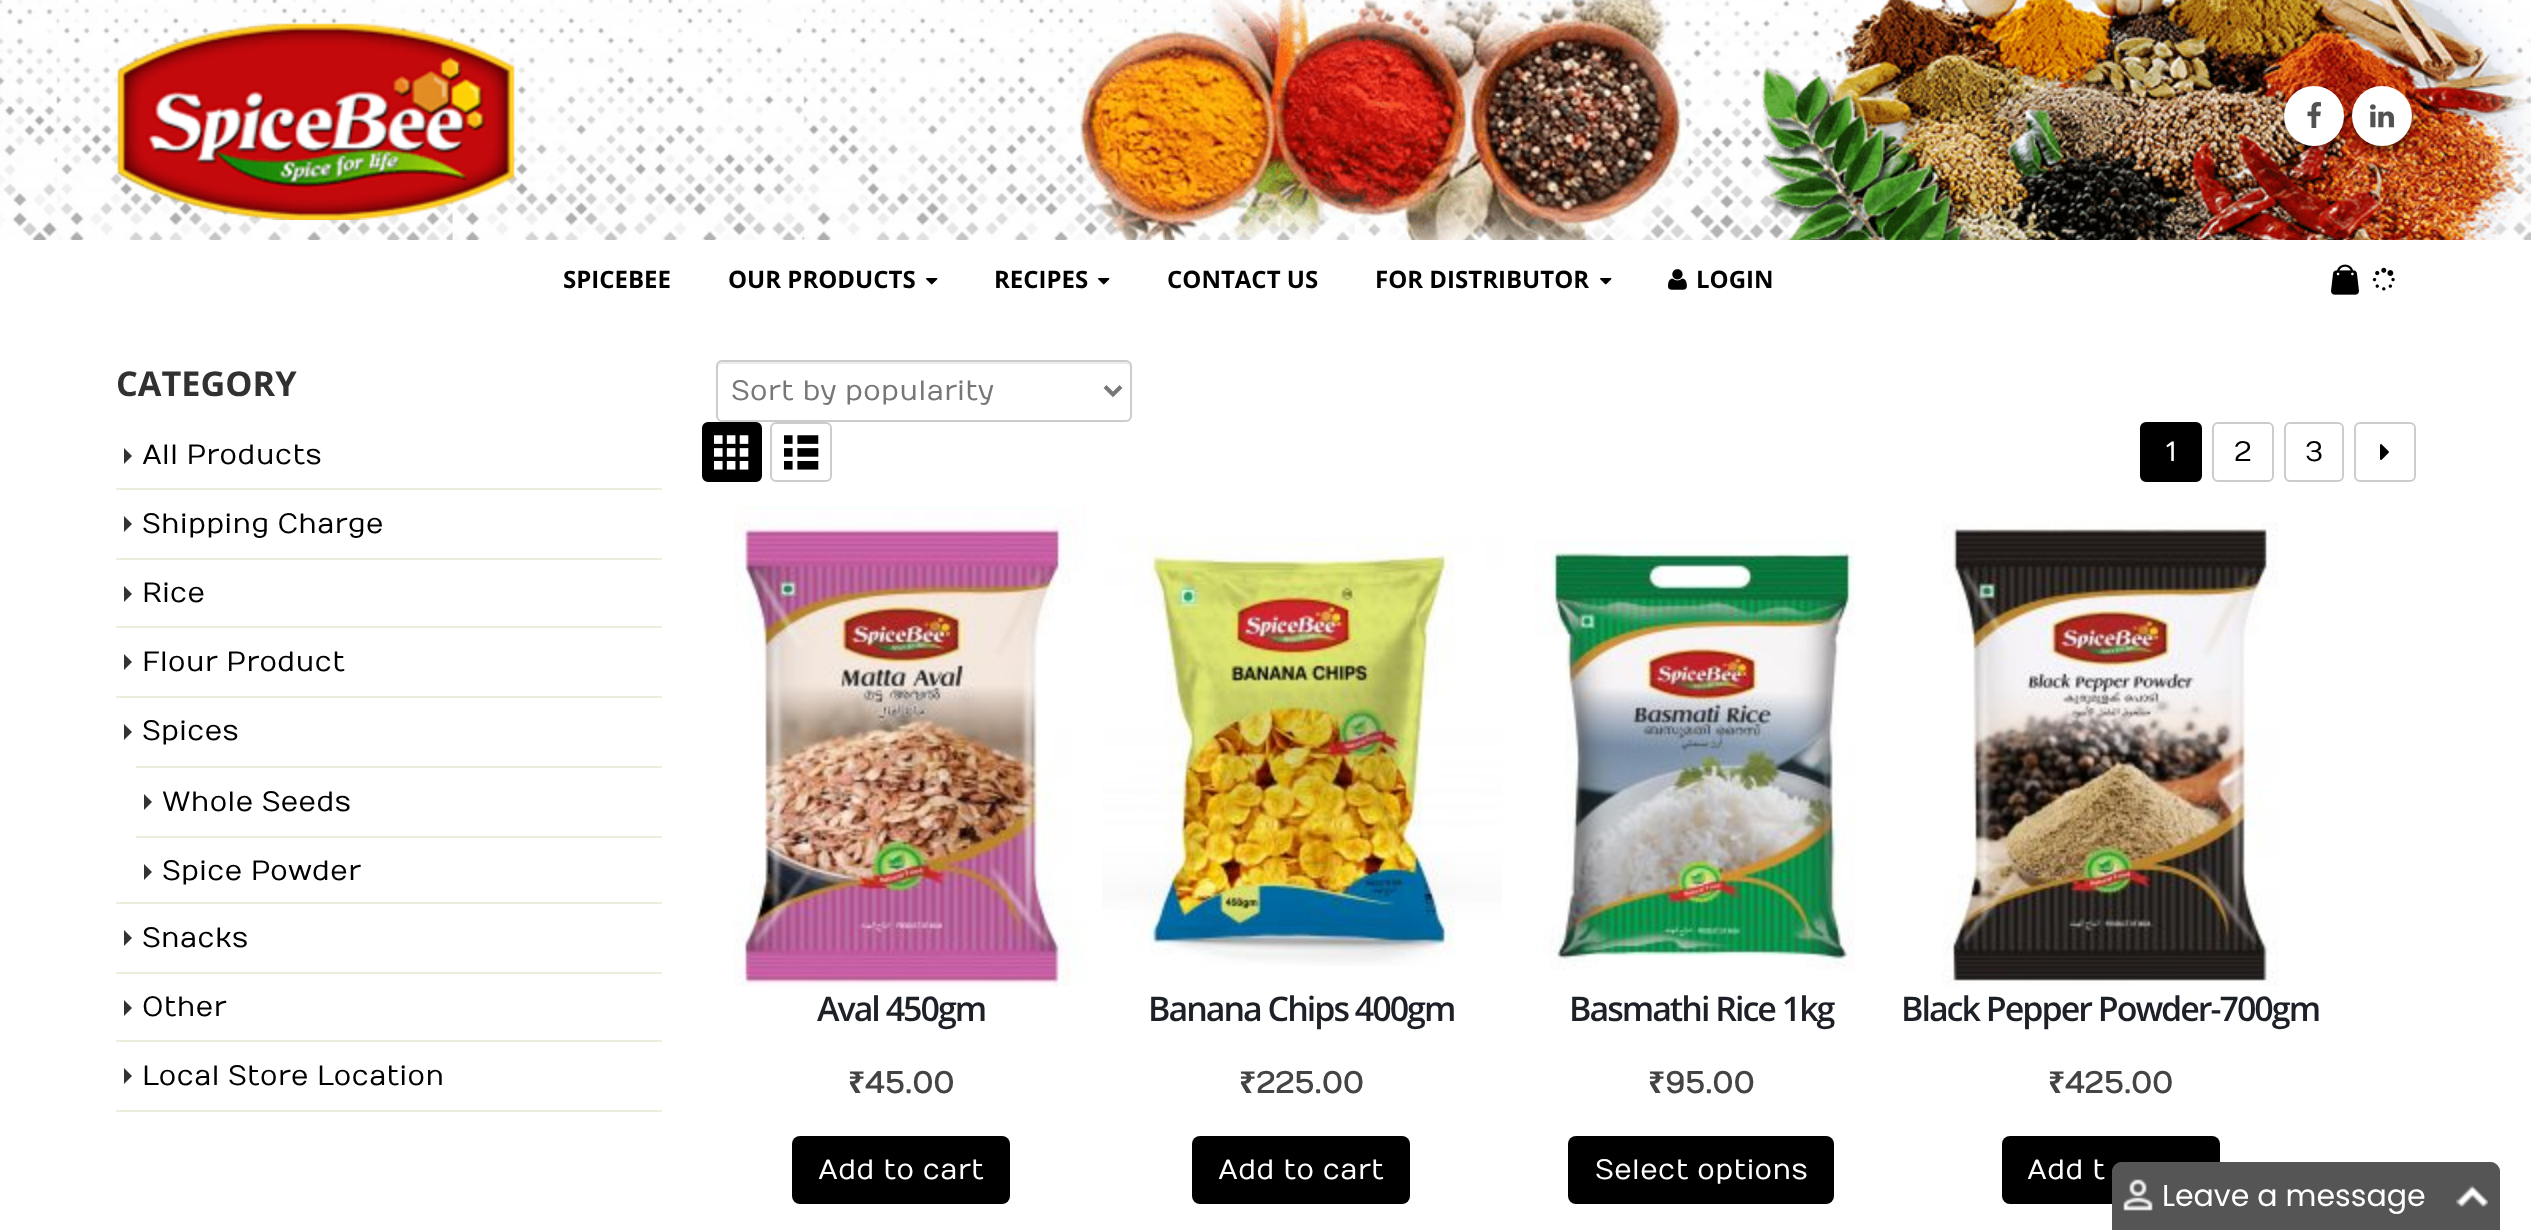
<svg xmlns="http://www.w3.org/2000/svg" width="2531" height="1230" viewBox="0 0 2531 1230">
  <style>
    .t1 { font: bold 24px Open Sans; fill: #000; }
    .t2 { font: bold 34.25px Open Sans; fill: #313131; }
    .t3 { font: 27.9px Numans; fill: #000; }
    .t4 { font: 27.9px Numans; fill: #777; }
    .t5 { font: 27.9px Numans; fill: #fff; }
    .t6 { font: 600 34px Open Sans; letter-spacing: -2px; fill: #1d2127; }
    .t7 { font: bold 30px Noto Sans; fill: #444; }
    .t8 { font: bold 30px Numans; fill: #444; }
    .t9 { font: 28px Numans; fill: #fff; }
    .t10 { font: 30px Poppins; fill: #fff; }
  </style>
  <rect width="100%" height="100%" fill="#fff"/>
  <image x="0" y="0" width="2531" height="240" href="images/1.png"/>
  <image x="117" y="23" width="398" height="197" href="images/2.png"/>
  <rect x="2284" y="90" width="60" height="60" rx="30" fill="#0000004d" filter="blur(2px)"/>
  <circle cx="2314" cy="116" r="30" fill="#fff"/>
  <image x="2307" y="102" width="14" height="26" href="images/3.png"/>
  <rect x="2352" y="90" width="60" height="60" rx="30" fill="#0000004d" filter="blur(2px)"/>
  <circle cx="2382" cy="116" r="30" fill="#fff"/>
  <image x="2370" y="104" width="24" height="24" href="images/4.png"/>
  <text x="563" y="288" class="t1">SPICEBEE</text>
  <text x="728" y="288" class="t1">OUR PRODUCTS</text>
  <image x="926" y="278" width="12" height="7" href="images/5.png"/>
  <text x="994" y="288" class="t1">RECIPES</text>
  <image x="1098" y="278" width="12" height="7" href="images/5.png"/>
  <text x="1167" y="288" class="t1">CONTACT US</text>
  <text x="1375" y="288" class="t1">FOR DISTRIBUTOR</text>
  <image x="1600" y="278" width="12" height="7" href="images/5.png"/>
  <image x="1668" y="269" width="19" height="21" href="images/6.png"/>
  <text x="1696" y="288" class="t1">LOGIN</text>
  <image x="2331" y="264" width="28" height="31" href="images/7.png"/>
  <image x="2372" y="267" width="23" height="24" href="images/8.png"/>
  <text x="116" y="396" class="t2">CATEGORY</text>
  <rect x="116" y="1110" width="546" height="2" fill="#ededde"/>
  <path d="M124 464V448L132 456Z" fill="#333"/>
  <text x="142" y="464" class="t3">All Products</text>
  <rect x="116" y="488" width="546" height="2" fill="#ededde"/>
  <path d="M124 532V516L132 524Z" fill="#333"/>
  <text x="142" y="533" class="t3">Shipping Charge</text>
  <rect x="116" y="558" width="546" height="2" fill="#ededde"/>
  <path d="M124 602V586L132 594Z" fill="#333"/>
  <text x="142" y="602" class="t3">Rice</text>
  <rect x="116" y="626" width="546" height="2" fill="#ededde"/>
  <path d="M124 670V654L132 662Z" fill="#333"/>
  <text x="142" y="671" class="t3">Flour Product</text>
  <rect x="116" y="696" width="546" height="2" fill="#ededde"/>
  <path d="M124 740V724L132 732Z" fill="#333"/>
  <text x="142" y="740" class="t3">Spices</text>
  <rect x="136" y="766" width="526" height="2" fill="#ededde"/>
  <path d="M144 810V794L152 802Z" fill="#333"/>
  <text x="162" y="811" class="t3">Whole Seeds</text>
  <rect x="136" y="836" width="526" height="2" fill="#ededde"/>
  <path d="M144 880V864L152 872Z" fill="#333"/>
  <text x="162" y="880" class="t3">Spice Powder</text>
  <rect x="116" y="902" width="546" height="2" fill="#ededde"/>
  <path d="M124 946V930L132 938Z" fill="#333"/>
  <text x="142" y="947" class="t3">Snacks</text>
  <rect x="116" y="972" width="546" height="2" fill="#ededde"/>
  <path d="M124 1016V1000L132 1008Z" fill="#333"/>
  <text x="142" y="1016" class="t3">Other</text>
  <rect x="116" y="1040" width="546" height="2" fill="#ededde"/>
  <path d="M124 1084V1068L132 1076Z" fill="#333"/>
  <text x="142" y="1085" class="t3">Local Store Location</text>
  <path d="M722 364H1126C1128 364 1130 366 1130 368C1130 365 1130 362 1126 362H722C718 362 718 365 718 368C718 366 720 364 722 364Z" fill="#ececec"/>
  <rect x="717" y="361" width="414" height="60" rx="5" fill="none" stroke="#ccc" stroke-width="2"/>
  <path d="M1105 386.5L1113 394.5L1121 386.5" fill="none" stroke="#777" stroke-width="4"/>
  <text x="731" y="400" class="t4">Sort by popularity</text>
  <rect x="703" y="423" width="58" height="58" rx="5" fill="#000" stroke="#000" stroke-width="2"/>
  <image x="714" y="435" width="35" height="35" href="images/9.png"/>
  <rect x="771" y="423" width="60" height="58" rx="5" fill="none" stroke="#ccc" stroke-width="2"/>
  <image x="784" y="435" width="35" height="35" href="images/10.png"/>
  <rect x="2141" y="423" width="60" height="58" rx="5" fill="#000" stroke="#000" stroke-width="2"/>
  <text x="2166" y="461" class="t5">1</text>
  <rect x="2213" y="423" width="60" height="58" rx="5" fill="none" stroke="#ccc" stroke-width="2"/>
  <text x="2234" y="461" class="t3">2</text>
  <rect x="2285" y="423" width="58" height="58" rx="5" fill="none" stroke="#ccc" stroke-width="2"/>
  <text x="2305" y="461" class="t3">3</text>
  <rect x="2355" y="423" width="60" height="58" rx="5" fill="none" stroke="#ccc" stroke-width="2"/>
  <image x="2380" y="444" width="9" height="16" href="images/11.png"/>
  <image x="733" y="506" width="353" height="481" href="images/12.png"/>
  <text x="817" y="1021" class="t6">Aval 450gm</text>
  <text x="848" y="1093" class="t7">₹</text>
  <text x="865" y="1093" class="t8">45.00</text>
  <rect x="792" y="1136" width="218" height="68" rx="8" fill="#000"/>
  <text x="818" y="1179" class="t9">Add to cart</text>
  <image x="1102" y="537" width="400" height="429" href="images/13.png"/>
  <text x="1148" y="1021" class="t6">Banana Chips 400gm</text>
  <text x="1239" y="1093" class="t7">₹</text>
  <text x="1256" y="1093" class="t8">225.00</text>
  <rect x="1192" y="1136" width="218" height="68" rx="8" fill="#000"/>
  <text x="1218" y="1179" class="t9">Add to cart</text>
  <image x="1534" y="539" width="321" height="431" href="images/14.png"/>
  <text x="1569" y="1021" class="t6">Basmathi Rice 1kg</text>
  <text x="1648" y="1093" class="t7">₹</text>
  <text x="1665" y="1093" class="t8">95.00</text>
  <rect x="1568" y="1136" width="266" height="68" rx="8" fill="#000"/>
  <text x="1595" y="1179" class="t9">Select options</text>
  <image x="1942" y="522" width="336" height="464" href="images/15.png"/>
  <text x="1901" y="1021" class="t6">Black Pepper Powder-700gm</text>
  <text x="2048" y="1093" class="t7">₹</text>
  <text x="2065" y="1093" class="t8">425.00</text>
  <rect x="2002" y="1136" width="218" height="68" rx="8" fill="#000"/>
  <text x="2027" y="1179" class="t9">Add t</text>
  <path d="M2122 1162H2490C2495.5 1162 2500 1166.5 2500 1172V1230H2112V1172C2112 1166.5 2116.5 1162 2122 1162Z" fill="#555"/>
  <image x="2123" y="1179" width="30" height="32" href="images/16.png"/>
  <path d="M2122 1163H2490C2495 1163 2499 1167 2499 1172V1229H2113V1172C2113 1167 2117 1163 2122 1163Z" fill="none" stroke="#555" stroke-width="2"/>
  <text x="2162" y="1206" class="t10">Leave a message</text>
  <image x="2456" y="1185" width="32" height="22" href="images/17.png"/>
</svg>
